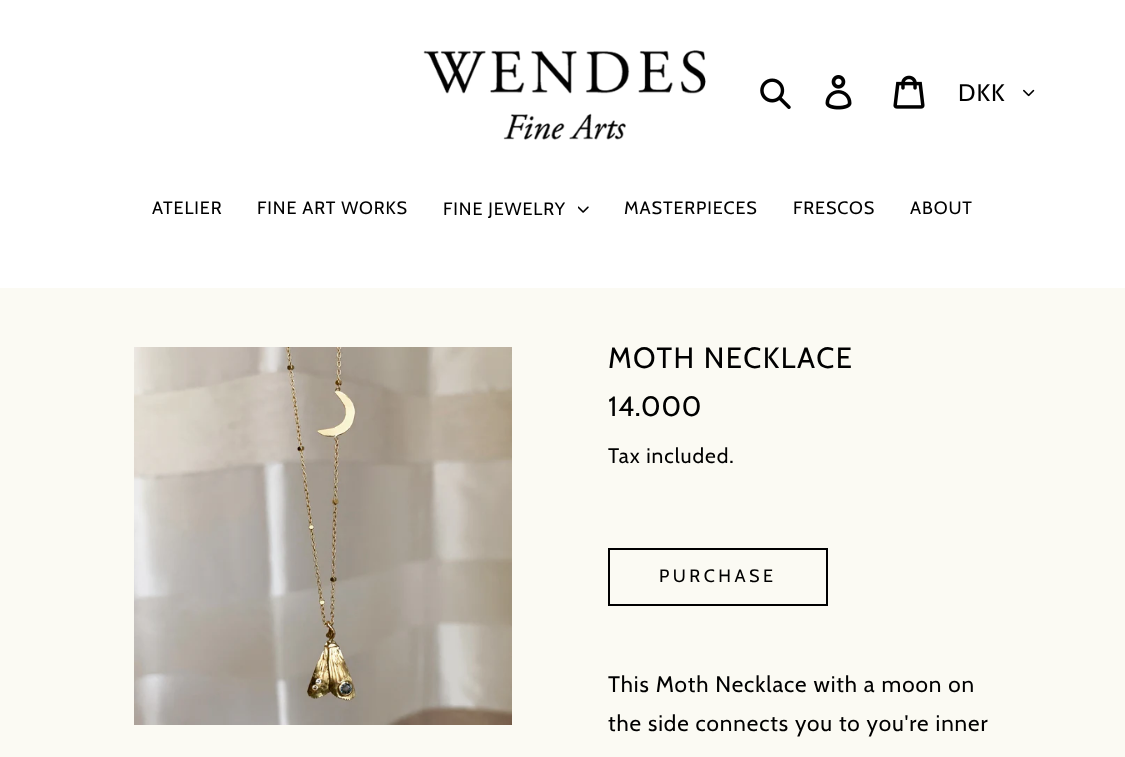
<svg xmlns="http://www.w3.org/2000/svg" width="1125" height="757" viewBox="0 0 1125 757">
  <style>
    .t1 { font: 24px Cabin; letter-spacing: 1px; fill: #000; }
    .t2 { font: 18px Cabin; letter-spacing: 0.9px; fill: #000; }
    .t3 { font: 29.25px Cabin; letter-spacing: 1.5px; fill: #000; }
    .t4 { font: 28px Cabin; letter-spacing: 0.9px; fill: #000; }
    .t5 { font: 21px Cabin; letter-spacing: 0.9px; fill: #000; }
    .t6 { font: 18px Cabin; letter-spacing: 3.5px; fill: #000; }
    .t7 { font: 22.5px Cabin; letter-spacing: 0.9px; fill: #000; }
  </style>
  <rect width="100%" height="100%" fill="#fbfaf3"/>
  <rect x="0" y="0" width="1125" height="288" fill="#fff"/>
  <image x="423" y="50" width="283" height="90" href="images/1.png"/>
  <image x="760" y="78" width="31" height="31" href="images/2.png"/>
  <image x="825" y="75" width="27" height="35" href="images/3.png"/>
  <image x="893" y="75" width="32" height="34" href="images/4.png"/>
  <text x="958" y="101" class="t1">DKK</text>
  <image x="1023" y="89" width="12" height="8" href="images/5.png"/>
  <text x="152" y="214" class="t2">ATELIER</text>
  <text x="257" y="214" class="t2">FINE ART WORKS</text>
  <text x="443" y="215" class="t2">FINE JEWELRY</text>
  <image x="578" y="206" width="11" height="7" href="images/6.png"/>
  <text x="624" y="214" class="t2">MASTERPIECES</text>
  <text x="793" y="214" class="t2">FRESCOS</text>
  <text x="910" y="214" class="t2">ABOUT</text>
  <image x="134" y="347" width="378" height="378" href="images/7.png"/>
  <text x="608" y="368" class="t3">MOTH NECKLACE</text>
  <text x="608" y="416" class="t4">14.000</text>
  <text x="608" y="463" class="t5">Tax included.</text>
  <rect x="609" y="549" width="218" height="56" fill="none" stroke="#000" stroke-width="2"/>
  <text x="659" y="582" class="t6">PURCHASE</text>
  <text x="608" y="692" class="t7">This Moth Necklace with a moon on</text>
  <text x="608" y="731" class="t7">the side connects you to you're inner</text>
</svg>
